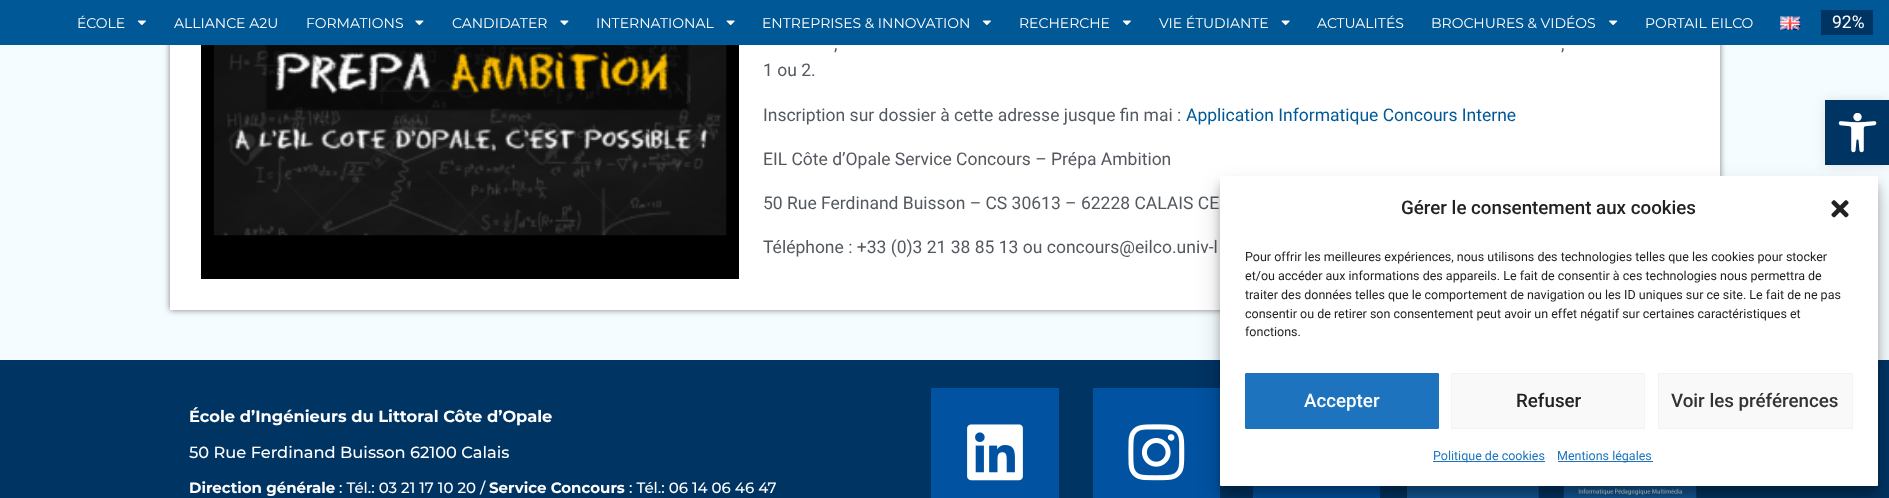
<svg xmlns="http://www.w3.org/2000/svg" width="1889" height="498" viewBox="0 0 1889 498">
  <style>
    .t1 { font: 14px Montserrat; fill: #fff; }
    .t2 { font: 17.5px Roboto; fill: #fff; }
    .t3 { font: 17.5px Roboto; fill: #54595f; }
    .t4 { font: 17.5px Roboto; fill: #005896; }
    .t5 { font: bold 16.25px Montserrat; fill: #fff; }
    .t6 { font: 500 16.25px Montserrat; fill: #fff; }
    .t7 { font: bold 15px Montserrat; fill: #fff; }
    .t8 { font: 500 15px Montserrat; fill: #fff; }
    .t9 { font: 500 18.75px Roboto; fill: #222; }
    .t10 { font: 12.5px Roboto; fill: #222; }
    .t11 { font: 500 18.75px Roboto; fill: #fff; }
    .t12 { font: 500 18.75px Roboto; fill: #333; }
    .t13 { font: 12.5px Roboto; fill: #1e73be; }
  </style>
  <rect width="100%" height="100%" fill="#f5fcff"/>
  <rect x="170" y="-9" width="1550" height="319" fill="#00000080" filter="blur(3px)"/>
  <rect x="0" y="0" width="1889" height="45" fill="#005896"/>
  <text x="77" y="28" class="t1">ÉCOLE</text>
  <image x="137" y="20" width="9" height="6" href="images/1.png"/>
  <text x="174" y="28" class="t1">ALLIANCE A2U</text>
  <text x="306" y="28" class="t1">FORMATIONS</text>
  <image x="415" y="20" width="9" height="6" href="images/2.png"/>
  <text x="452" y="28" class="t1">CANDIDATER</text>
  <image x="560" y="20" width="9" height="6" href="images/2.png"/>
  <text x="596" y="28" class="t1">INTERNATIONAL</text>
  <image x="726" y="20" width="9" height="6" href="images/3.png"/>
  <text x="762" y="28" class="t1">ENTREPRISES &amp; INNOVATION</text>
  <image x="982" y="20" width="9" height="6" href="images/1.png"/>
  <text x="1019" y="28" class="t1">RECHERCHE</text>
  <image x="1122" y="20" width="9" height="6" href="images/1.png"/>
  <text x="1159" y="28" class="t1">VIE ÉTUDIANTE</text>
  <image x="1281" y="20" width="9" height="6" href="images/3.png"/>
  <text x="1317" y="28" class="t1">ACTUALITÉS</text>
  <text x="1431" y="28" class="t1">BROCHURES &amp; VIDÉOS</text>
  <image x="1609" y="20" width="9" height="6" href="images/4.png"/>
  <text x="1645" y="28" class="t1">PORTAIL EILCO</text>
  <image x="1780" y="16" width="21" height="14" href="images/5.png"/>
  <rect x="1821" y="10" width="52" height="25" fill="#003463"/>
  <text x="1832" y="28" class="t2">92%</text>
  <rect x="170" y="45" width="1550" height="265" fill="#fff"/>
  <rect x="201" y="45" width="538" height="234" fill="#000"/>
  <image x="213" y="45" width="514" height="191" href="images/6.png"/>
  <text x="834" y="50" class="t3">,</text>
  <text x="1561" y="50" class="t3">,</text>
  <text x="763" y="76" class="t3">1 ou 2.</text>
  <text x="763" y="121" class="t3">Inscription sur dossier à cette adresse jusque fin mai :</text>
  <text x="1186" y="121" class="t4">Application Informatique Concours Interne</text>
  <text x="763" y="165" class="t3">EIL Côte d’Opale Service Concours – Prépa Ambition</text>
  <text x="763" y="209" class="t3">50 Rue Ferdinand Buisson – CS 30613 – 62228 CALAIS CE</text>
  <text x="763" y="253" class="t3">Téléphone : +33 (0)3 21 38 85 13 ou concours@eilco.univ-l</text>
  <rect x="1825" y="100" width="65" height="65" fill="#0000001a" filter="blur(6px)"/>
  <rect x="1825" y="100" width="64" height="65" fill="#003463"/>
  <image x="1838" y="113" width="39" height="40" href="images/7.png"/>
  <rect x="0" y="360" width="1889" height="138" fill="#003463"/>
  <text x="189" y="422" class="t5">École d’Ingénieurs du Littoral Côte d’Opale</text>
  <text x="189" y="458" class="t6">50 Rue Ferdinand Buisson 62100 Calais</text>
  <text x="189" y="493" class="t7">Direction générale</text>
  <text x="339" y="493" class="t8">: Tél.: 03 21 17 10 20 /</text>
  <text x="489" y="493" class="t7">Service Concours</text>
  <text x="629" y="493" class="t8">: Tél.: 06 14 06 46 47</text>
  <rect x="931" y="388" width="128" height="110" fill="#0152a1"/>
  <image x="967" y="424" width="56" height="57" href="images/8.png"/>
  <rect x="1093" y="388" width="127" height="110" fill="#0152a1"/>
  <image x="1128" y="424" width="57" height="57" href="images/9.png"/>
  <rect x="1253" y="486" width="127" height="12" fill="#0152a1"/>
  <image x="1407" y="486" width="132" height="12" href="images/10.png"/>
  <image x="1563" y="486" width="134" height="12" href="images/11.png"/>
  <rect x="1220" y="184" width="658" height="310" rx="1" fill="#0000003b" filter="blur(4px)"/>
  <rect x="1220" y="189" width="658" height="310" rx="1" fill="#00000030" filter="blur(12.5px)"/>
  <rect x="1220" y="176" width="658" height="310" rx="1" fill="#fff"/>
  <text x="1401" y="214" class="t9">Gérer le consentement aux cookies</text>
  <image x="1831" y="200" width="18" height="18" href="images/12.png"/>
  <text x="1245" y="261" class="t10">Pour offrir les meilleures expériences, nous utilisons des technologies telles que les cookies pour stocker</text>
  <text x="1245" y="280" class="t10">et/ou accéder aux informations des appareils. Le fait de consentir à ces technologies nous permettra de</text>
  <text x="1245" y="299" class="t10">traiter des données telles que le comportement de navigation ou les ID uniques sur ce site. Le fait de ne pas</text>
  <text x="1245" y="318" class="t10">consentir ou de retirer son consentement peut avoir un effet négatif sur certaines caractéristiques et</text>
  <text x="1245" y="336" class="t10">fonctions.</text>
  <rect x="1245.5" y="373.5" width="193" height="55" rx="0.5" fill="#1e73be" stroke="#1e73be"/>
  <text x="1304" y="407" class="t11">Accepter</text>
  <rect x="1451.5" y="373.5" width="193" height="55" rx="0.5" fill="#f9f9f9" stroke="#f2f2f2"/>
  <text x="1516" y="407" class="t9">Refuser</text>
  <rect x="1658.5" y="373.5" width="194" height="55" rx="0.5" fill="#f9f9f9" stroke="#f2f2f2"/>
  <text x="1671" y="407" class="t12">Voir les préférences</text>
  <rect x="1433" y="461" width="112" height="1" fill="#1e73be"/>
  <text x="1433" y="460" class="t13">Politique de cookies</text>
  <rect x="1558" y="461" width="95" height="1" fill="#1e73be"/>
  <text x="1557" y="460" class="t13">Mentions légales</text>
</svg>
